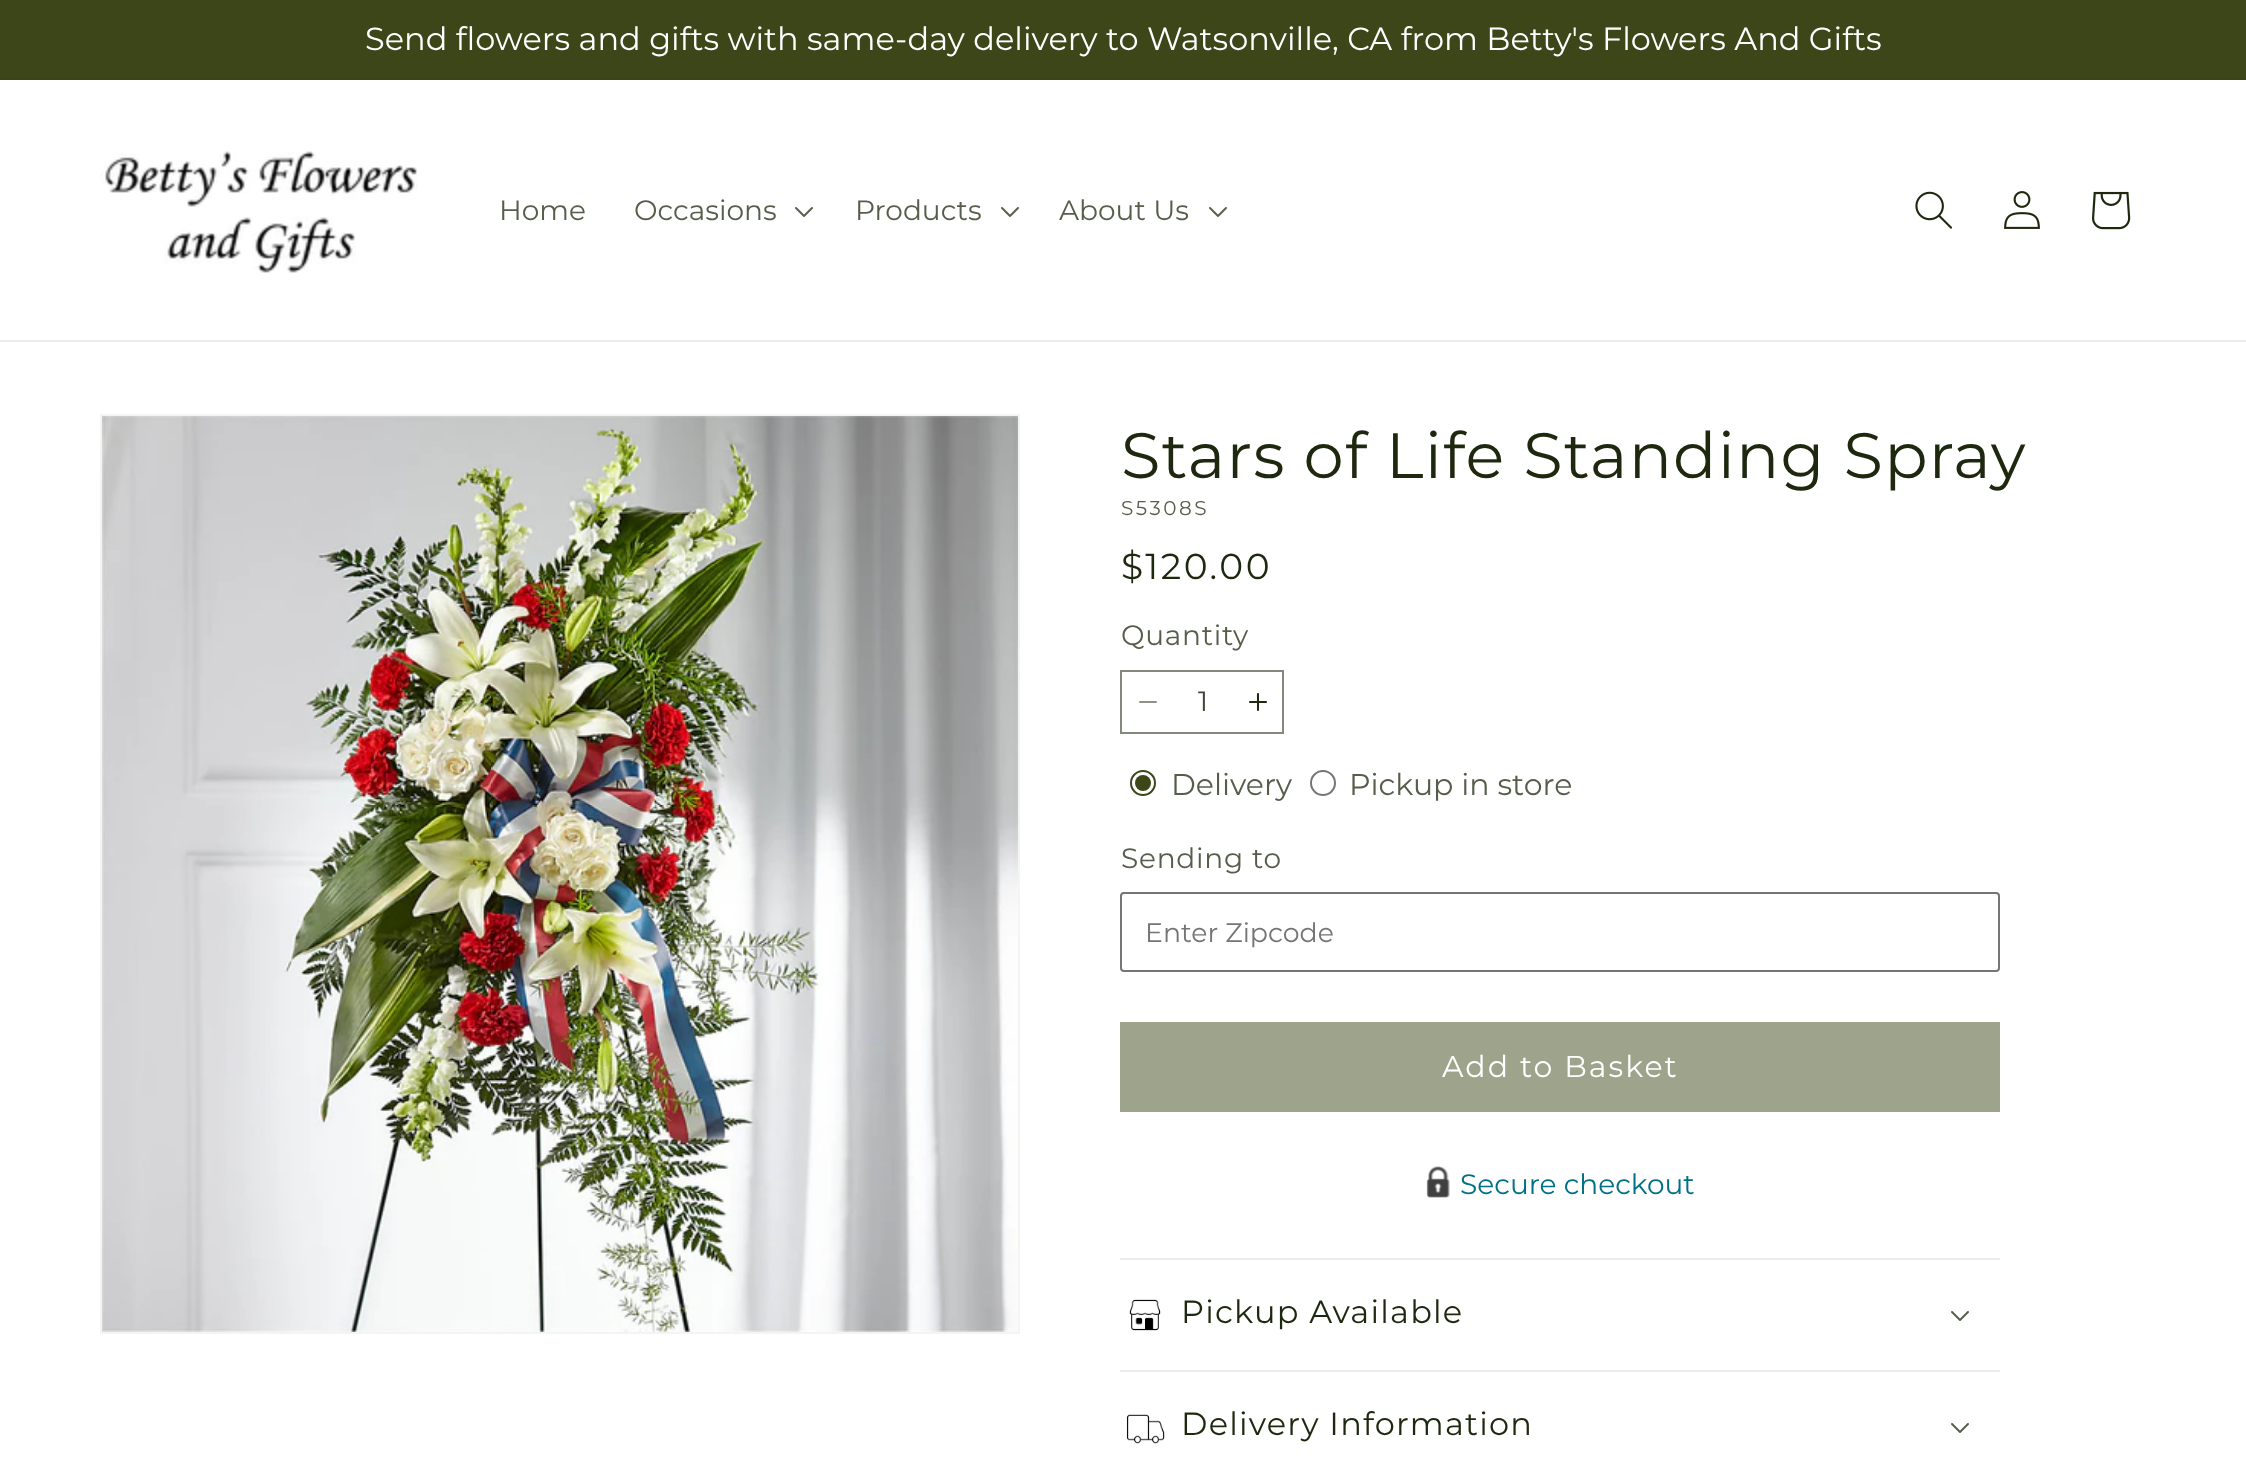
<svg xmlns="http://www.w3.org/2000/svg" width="2246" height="1475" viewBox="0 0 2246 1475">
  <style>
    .t1 { font: 32px Montserrat; fill: #fff; }
    .t2 { font: 28px Montserrat; fill: #565e4b; }
    .t3 { font: 64px Montserrat; letter-spacing: 1.2px; fill: #1e280f; }
    .t4 { font: 20px Montserrat; letter-spacing: 2.5px; fill: #565e4b; }
    .t5 { font: 36px Montserrat; letter-spacing: 2.5px; fill: #1e280f; }
    .t6 { font: 28px Montserrat; letter-spacing: 0.75px; fill: #565e4b; }
    .t7 { font: 28px Montserrat; fill: #404833; }
    .t8 { font: 30px Montserrat; fill: #565e4b; }
    .t9 { font: 26.75px Montserrat; fill: #757575; }
    .t10 { font: 30px Montserrat; letter-spacing: 2px; fill: #fff; }
    .t11 { font: 28px Montserrat; fill: #007185; }
    .t12 { font: 32px Montserrat; letter-spacing: 1.2px; fill: #1e280f; }
  </style>
  <rect width="100%" height="100%" fill="#fff"/>
  <rect x="0" y="0" width="2246" height="78" fill="#3c4618"/>
  <rect x="0" y="78" width="2246" height="2" fill="#3a4417"/>
  <text x="365" y="50" class="t1">Send flowers and gifts with same-day delivery to Watsonville, CA from Betty's Flowers And Gifts</text>
  <rect x="0" y="340" width="2246" height="2" fill="#edeeec"/>
  <image x="100" y="151" width="318" height="122" href="images/1.png"/>
  <text x="499" y="220" class="t2">Home</text>
  <text x="634" y="220" class="t2">Occasions</text>
  <image x="795" y="207" width="18" height="10" href="images/2.png"/>
  <text x="855" y="220" class="t2">Products</text>
  <image x="1001" y="207" width="18" height="10" href="images/2.png"/>
  <text x="1059" y="220" class="t2">About Us</text>
  <image x="1209" y="207" width="18" height="10" href="images/2.png"/>
  <image x="1915" y="191" width="37" height="38" href="images/3.png"/>
  <image x="2004" y="191" width="36" height="38" href="images/4.png"/>
  <image x="2092" y="191" width="39" height="39" href="images/5.png"/>
  <rect x="101" y="415" width="918" height="918" fill="none" stroke="#f4f4f3" stroke-width="2"/>
  <image x="102" y="416" width="916" height="916" href="images/6.png"/>
  <text x="1121" y="478" class="t3">Stars of Life Standing Spray</text>
  <text x="1121" y="515" class="t4">S5308S</text>
  <text x="1121" y="579" class="t5">$120.00</text>
  <text x="1121" y="645" class="t6">Quantity</text>
  <image x="1139" y="701" width="18" height="2" href="images/7.png"/>
  <image x="1249" y="693" width="18" height="18" href="images/8.png"/>
  <rect x="1121" y="671" width="162" height="62" fill="none" stroke="#83897b" stroke-width="2"/>
  <text x="1198" y="711" class="t7">1</text>
  <circle cx="1143" cy="783" r="12" fill="none" stroke="#3c4618" stroke-width="2"/>
  <circle cx="1143" cy="783" r="8" fill="#3c4618"/>
  <text x="1171" y="795" class="t8">Delivery</text>
  <circle cx="1323" cy="783" r="12" fill="none" stroke="#767676" stroke-width="2"/>
  <text x="1349" y="795" class="t8">Pickup in store</text>
  <text x="1121" y="868" class="t6">Sending to</text>
  <rect x="1121" y="893" width="878" height="78" rx="3" fill="none" stroke="#767676" stroke-width="2"/>
  <text x="1145" y="942" class="t9">Enter Zipcode</text>
  <rect x="1120" y="1022" width="880" height="90" fill="#9ea38c"/>
  <text x="1442" y="1077" class="t10">Add to Basket</text>
  <image x="1426" y="1166" width="24" height="32" href="images/9.png"/>
  <text x="1460" y="1194" class="t11">Secure checkout</text>
  <rect x="1120" y="1258" width="880" height="2" fill="#edeeec"/>
  <rect x="1120" y="1370" width="880" height="2" fill="#edeeec"/>
  <image x="1129" y="1299" width="32" height="32" href="images/10.png"/>
  <text x="1181" y="1323" class="t12">Pickup Available</text>
  <image x="1951" y="1311" width="18" height="10" href="images/2.png"/>
  <image x="1126" y="1414" width="39" height="30" href="images/11.png"/>
  <text x="1181" y="1435" class="t12">Delivery Information</text>
  <image x="1951" y="1423" width="18" height="10" href="images/2.png"/>
</svg>
